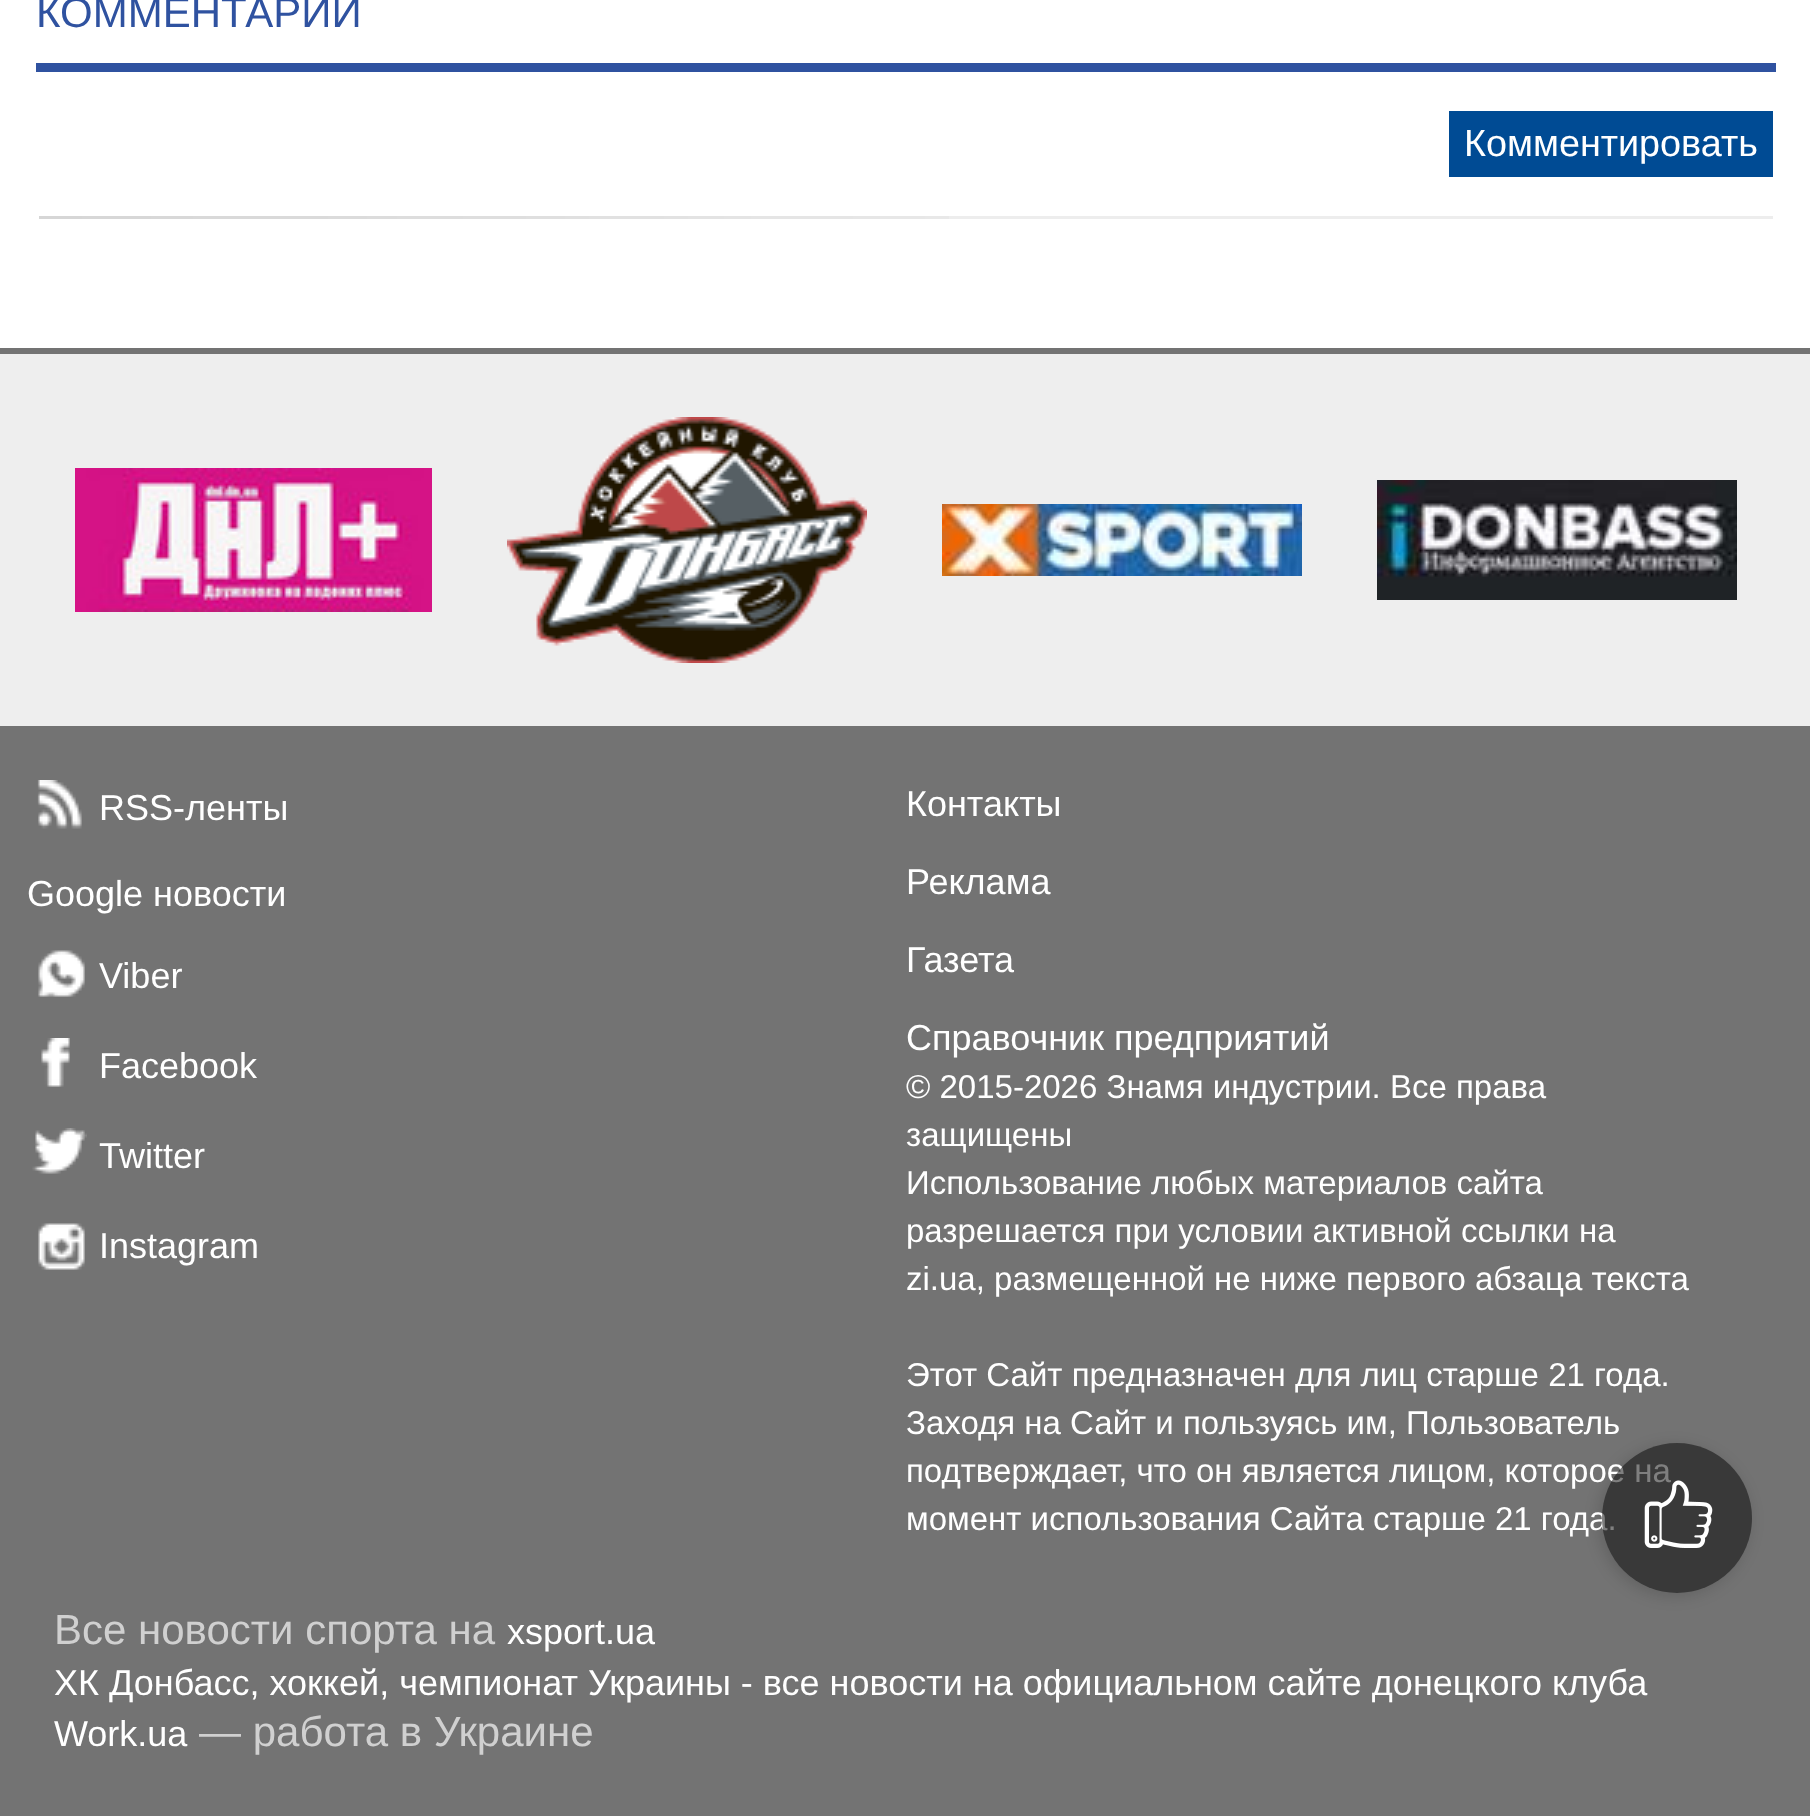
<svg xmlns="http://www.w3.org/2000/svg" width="1810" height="1816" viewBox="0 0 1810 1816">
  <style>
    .t1 { font: 42px Liberation Sans; fill: #2f52a0; }
    .t2 { font: 37.75px Liberation Sans; fill: #fff; }
    .t3 { font: 33px Liberation Sans; fill: #fff; }
    .t4 { font: 36px Liberation Sans; fill: #fff; }
    .t5 { font: 42px Liberation Sans; fill: #d0d0d0; }
  </style>
  <defs>
    <clipPath id="clip1"><path d="M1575 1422H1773V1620H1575ZM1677 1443C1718.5 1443 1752 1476.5 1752 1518C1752 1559.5 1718.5 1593 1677 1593C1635.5 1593 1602 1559.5 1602 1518C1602 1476.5 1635.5 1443 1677 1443Z" clip-rule="evenodd"/></clipPath>
  </defs>
  <rect width="100%" height="100%" fill="#fff"/>
  <rect x="36" y="63" width="1740" height="9" fill="#2f52a0"/>
  <text x="36" y="27" class="t1">КОММЕНТАРИИ</text>
  <rect x="1449" y="111" width="324" height="66" fill="#004b94"/>
  <text x="1464" y="156" class="t2">Комментировать</text>
  <rect x="949" y="216" width="824" height="3" fill="#ededed"/>
  <image x="39" y="216" width="910" height="3" href="images/1.png"/>
  <rect x="0" y="348" width="1810" height="1468" fill="#737373"/>
  <g clip-path="url(#clip1)">
    <rect x="1599" y="1446" width="150" height="150" rx="75" fill="#00000026" filter="blur(7.5px)"/>
  </g>
  <text x="906" y="1482" class="t3">подтверждает, что он является лицом, которое на</text>
  <text x="906" y="1530" class="t3">момент использования Сайта старше 21 года.</text>
  <circle cx="1677" cy="1518" r="75" fill="#00000080"/>
  <image x="1644" y="1480" width="69" height="68" href="images/2.png"/>
  <rect x="0" y="354" width="1810" height="372" fill="#eee"/>
  <image x="75" y="468" width="357" height="144" href="images/3.png"/>
  <image x="507" y="417" width="360" height="246" href="images/4.png"/>
  <image x="942" y="504" width="360" height="72" href="images/5.png"/>
  <image x="1377" y="480" width="360" height="120" href="images/6.png"/>
  <image x="37" y="780" width="45" height="49" href="images/7.png"/>
  <text x="99" y="820" class="t4">RSS-ленты</text>
  <text x="27" y="906" class="t4">Google новости</text>
  <image x="38" y="950" width="47" height="47" href="images/8.png"/>
  <text x="99" y="988" class="t4">Viber</text>
  <image x="41" y="1038" width="29" height="49" href="images/9.png"/>
  <text x="99" y="1078" class="t4">Facebook</text>
  <image x="32" y="1128" width="55" height="46" href="images/10.png"/>
  <text x="99" y="1168" class="t4">Twitter</text>
  <image x="38" y="1223" width="47" height="47" href="images/11.png"/>
  <text x="99" y="1258" class="t4">Instagram</text>
  <text x="906" y="816" class="t4">Контакты</text>
  <text x="906" y="894" class="t4">Реклама</text>
  <text x="906" y="972" class="t4">Газета</text>
  <text x="906" y="1050" class="t4">Справочник предприятий</text>
  <text x="906" y="1098" class="t3">© 2015-2026 Знамя индустрии. Все права</text>
  <text x="906" y="1146" class="t3">защищены</text>
  <text x="906" y="1194" class="t3">Использование любых материалов сайта</text>
  <text x="906" y="1242" class="t3">разрешается при условии активной ссылки на</text>
  <text x="906" y="1290" class="t3">zi.ua, размещенной не ниже первого абзаца текста</text>
  <text x="906" y="1386" class="t3">Этот Сайт предназначен для лиц старше 21 года.</text>
  <text x="906" y="1434" class="t3">Заходя на Сайт и пользуясь им, Пользователь</text>
  <text x="54" y="1644" class="t5">Все новости спорта на</text>
  <text x="507" y="1644" class="t4">xsport.ua</text>
  <text x="54" y="1695" class="t4">ХК Донбасс, хоккей, чемпионат Украины - все новости на официальном сайте донецкого клуба</text>
  <text x="54" y="1746" class="t4">Work.ua</text>
  <text x="199" y="1746" class="t5">— работа в Украине</text>
</svg>
